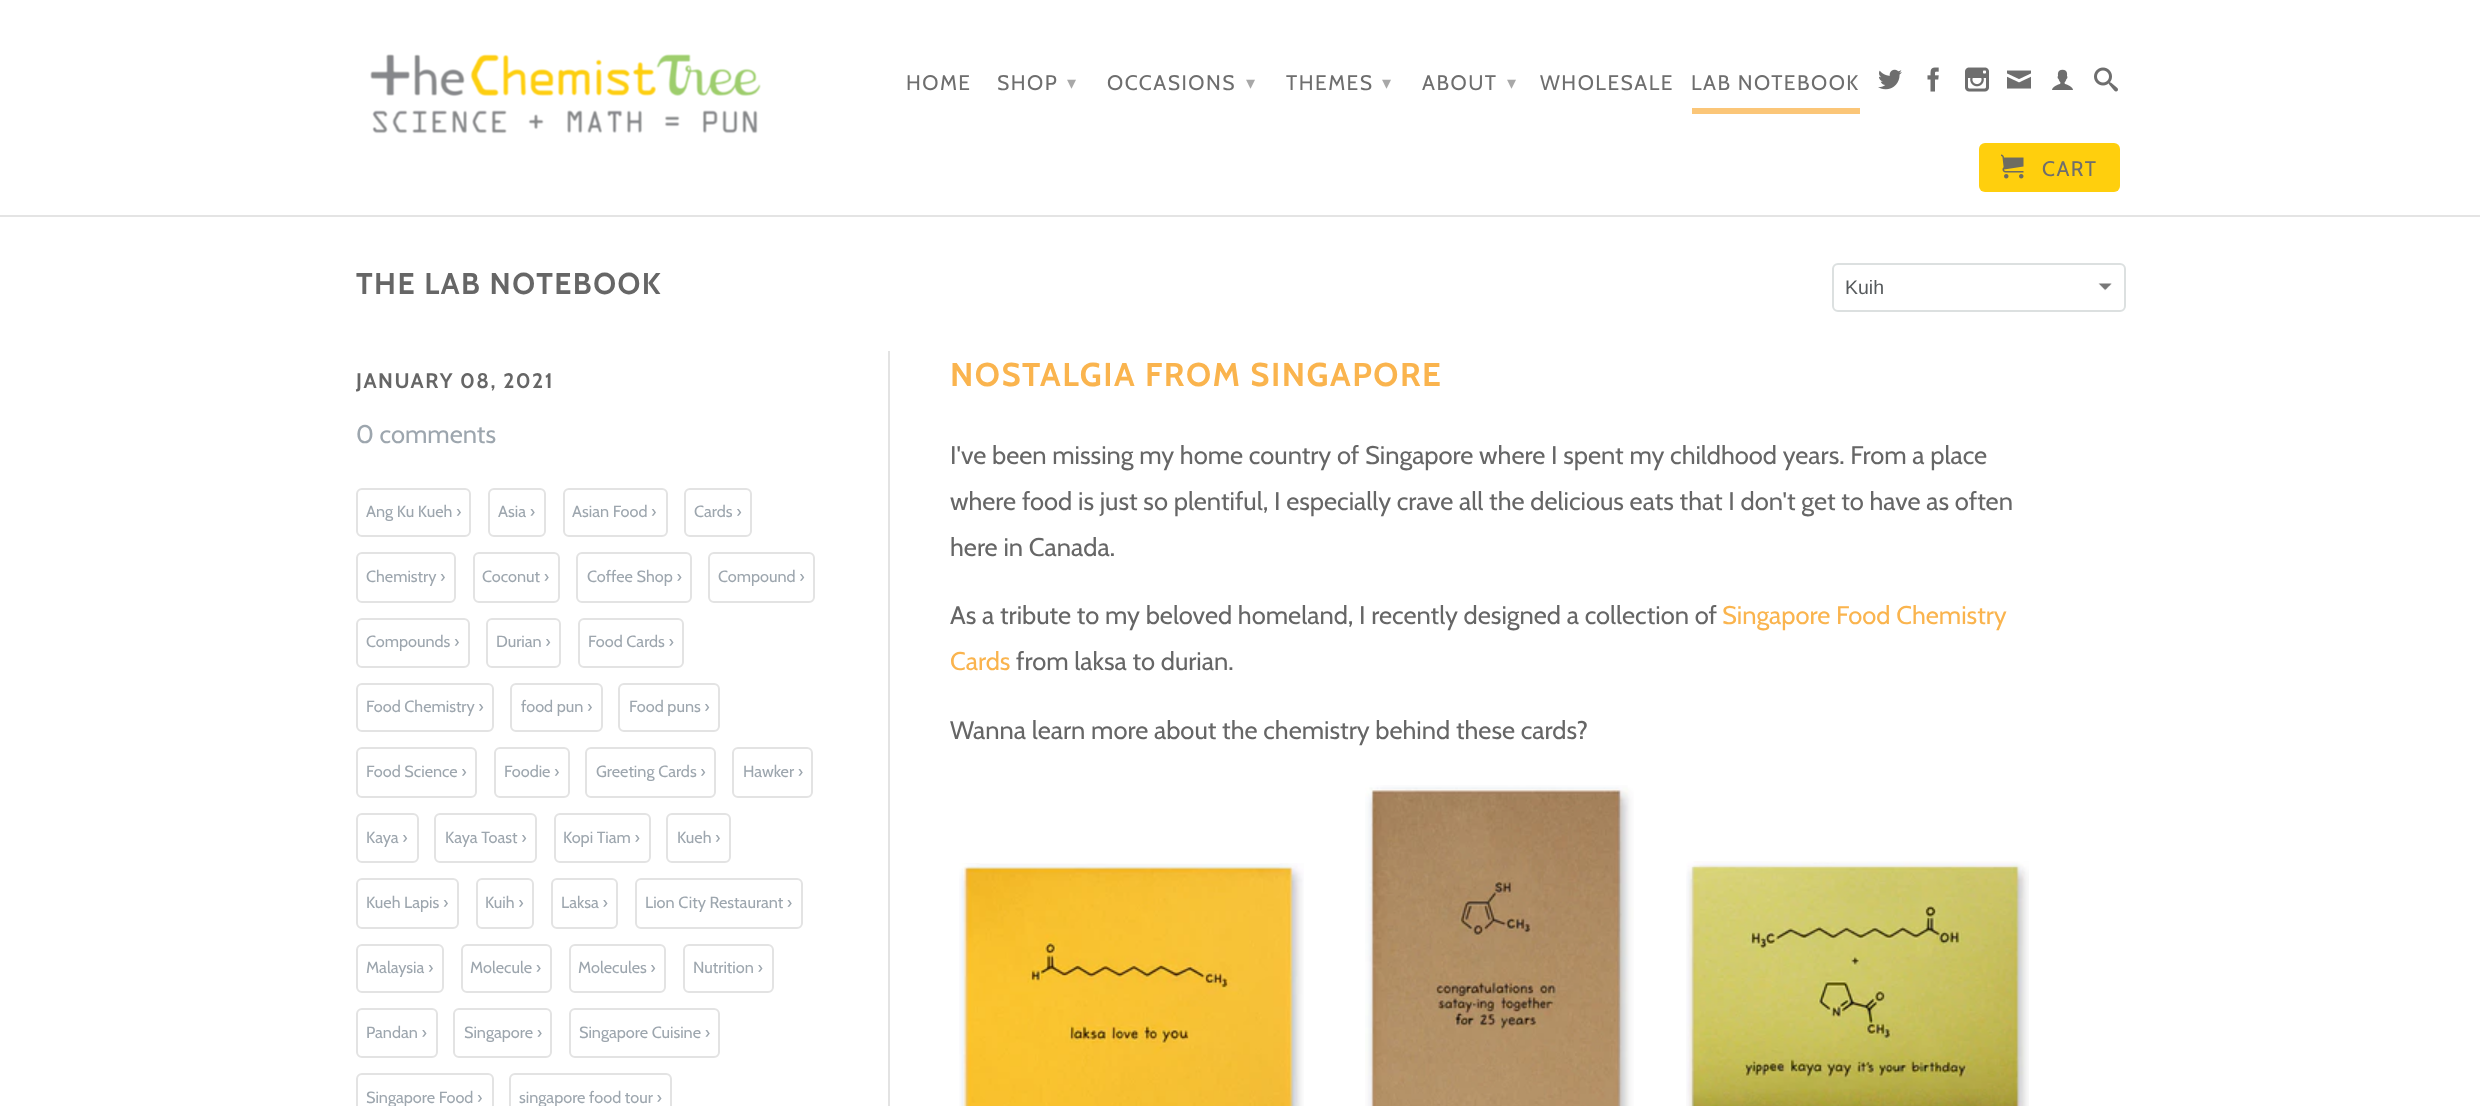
<svg xmlns="http://www.w3.org/2000/svg" width="2480" height="1106" viewBox="0 0 2480 1106">
  <style>
    .t1 { font: 21px Cabin; letter-spacing: 1.5px; fill: #6e6e6e; }
    .t2 { font: 18px DejaVu Sans; letter-spacing: 1.5px; fill: #a8a8a8; }
    .t3 { font: bold 30px Cabin; letter-spacing: 1.5px; fill: #666; }
    .t4 { font: 19.5px Liberation Sans; fill: #565a5c; }
    .t5 { font: bold 21px Cabin; letter-spacing: 1.5px; fill: #666; }
    .t6 { font: 25.5px Cabin; fill: #9da6ae; }
    .t7 { font: 16.25px Cabin; fill: #9da6ae; }
    .t8 { font: bold 33px Cabin; letter-spacing: 1.5px; fill: #fab44e; }
    .t9 { font: 25.5px Cabin; fill: #666; }
    .t10 { font: 25.5px Cabin; fill: #fab44e; }
  </style>
  <rect width="100%" height="100%" fill="#fff"/>
  <rect x="0" y="215" width="2480" height="2" fill="#e4e4e4"/>
  <image x="370" y="54" width="391" height="80" href="images/1.png"/>
  <text x="906" y="90" class="t1">HOME</text>
  <text x="997" y="90" class="t1">SHOP</text>
  <text x="1067" y="89" class="t2">▾</text>
  <text x="1107" y="90" class="t1">OCCASIONS</text>
  <text x="1246" y="89" class="t2">▾</text>
  <text x="1286" y="90" class="t1">THEMES</text>
  <text x="1382" y="89" class="t2">▾</text>
  <text x="1422" y="90" class="t1">ABOUT</text>
  <text x="1507" y="89" class="t2">▾</text>
  <text x="1540" y="90" class="t1">WHOLESALE</text>
  <text x="1691" y="90" class="t1">LAB NOTEBOOK</text>
  <rect x="1692" y="108" width="168" height="6" fill="#fbc678"/>
  <image x="1878" y="69" width="24" height="21" href="images/2.png"/>
  <image x="1927" y="67" width="12" height="25" href="images/3.png"/>
  <image x="1965" y="67" width="24" height="25" href="images/4.png"/>
  <image x="2007" y="70" width="24" height="19" href="images/5.png"/>
  <image x="2052" y="69" width="21" height="21" href="images/6.png"/>
  <image x="2094" y="67" width="24" height="25" href="images/7.png"/>
  <rect x="1979" y="143" width="141" height="49" rx="6" fill="#ffcf0d"/>
  <image x="2001" y="154" width="23" height="25" href="images/8.png"/>
  <text x="2042" y="176" class="t1">CART</text>
  <text x="356" y="294" class="t3">THE LAB NOTEBOOK</text>
  <image x="2098" y="283" width="14" height="8" href="images/9.png"/>
  <rect x="1833" y="264" width="292" height="47" rx="5" fill="none" stroke="#dce0e0" stroke-width="2"/>
  <text x="1845" y="294" class="t4">Kuih</text>
  <text x="356" y="388" class="t5">JANUARY 08, 2021</text>
  <text x="356" y="443" class="t6">0 comments</text>
  <rect x="357" y="489" width="113" height="47" rx="5" fill="none" stroke="#e3e3e3" stroke-width="2"/>
  <text x="366" y="517" class="t7">Ang Ku Kueh ›</text>
  <rect x="489" y="489" width="56" height="47" rx="5" fill="none" stroke="#e3e3e3" stroke-width="2"/>
  <text x="498" y="517" class="t7">Asia ›</text>
  <rect x="564" y="489" width="103" height="47" rx="5" fill="none" stroke="#e3e3e3" stroke-width="2"/>
  <text x="572" y="517" class="t7">Asian Food ›</text>
  <rect x="685" y="489" width="66" height="47" rx="5" fill="none" stroke="#e3e3e3" stroke-width="2"/>
  <text x="694" y="517" class="t7">Cards ›</text>
  <rect x="357" y="553" width="98" height="49" rx="5" fill="none" stroke="#e3e3e3" stroke-width="2"/>
  <text x="366" y="582" class="t7">Chemistry ›</text>
  <rect x="474" y="553" width="85" height="49" rx="5" fill="none" stroke="#e3e3e3" stroke-width="2"/>
  <text x="482" y="582" class="t7">Coconut ›</text>
  <rect x="577" y="553" width="114" height="49" rx="5" fill="none" stroke="#e3e3e3" stroke-width="2"/>
  <text x="587" y="582" class="t7">Coffee Shop ›</text>
  <rect x="709" y="553" width="105" height="49" rx="5" fill="none" stroke="#e3e3e3" stroke-width="2"/>
  <text x="718" y="582" class="t7">Compound ›</text>
  <rect x="357" y="619" width="112" height="48" rx="5" fill="none" stroke="#e3e3e3" stroke-width="2"/>
  <text x="366" y="647" class="t7">Compounds ›</text>
  <rect x="487" y="619" width="73" height="48" rx="5" fill="none" stroke="#e3e3e3" stroke-width="2"/>
  <text x="496" y="647" class="t7">Durian ›</text>
  <rect x="579" y="619" width="104" height="48" rx="5" fill="none" stroke="#e3e3e3" stroke-width="2"/>
  <text x="588" y="647" class="t7">Food Cards ›</text>
  <rect x="357" y="684" width="136" height="47" rx="5" fill="none" stroke="#e3e3e3" stroke-width="2"/>
  <text x="366" y="712" class="t7">Food Chemistry ›</text>
  <rect x="511" y="684" width="91" height="47" rx="5" fill="none" stroke="#e3e3e3" stroke-width="2"/>
  <text x="521" y="712" class="t7">food pun ›</text>
  <rect x="619" y="684" width="100" height="47" rx="5" fill="none" stroke="#e3e3e3" stroke-width="2"/>
  <text x="629" y="712" class="t7">Food puns ›</text>
  <rect x="357" y="748" width="119" height="49" rx="5" fill="none" stroke="#e3e3e3" stroke-width="2"/>
  <text x="366" y="777" class="t7">Food Science ›</text>
  <rect x="495" y="748" width="74" height="49" rx="5" fill="none" stroke="#e3e3e3" stroke-width="2"/>
  <text x="504" y="777" class="t7">Foodie ›</text>
  <rect x="586" y="748" width="129" height="49" rx="5" fill="none" stroke="#e3e3e3" stroke-width="2"/>
  <text x="596" y="777" class="t7">Greeting Cards ›</text>
  <rect x="733" y="748" width="79" height="49" rx="5" fill="none" stroke="#e3e3e3" stroke-width="2"/>
  <text x="743" y="777" class="t7">Hawker ›</text>
  <rect x="357" y="814" width="61" height="48" rx="5" fill="none" stroke="#e3e3e3" stroke-width="2"/>
  <text x="366" y="843" class="t7">Kaya ›</text>
  <rect x="435" y="814" width="101" height="48" rx="5" fill="none" stroke="#e3e3e3" stroke-width="2"/>
  <text x="445" y="843" class="t7">Kaya Toast ›</text>
  <rect x="555" y="814" width="95" height="48" rx="5" fill="none" stroke="#e3e3e3" stroke-width="2"/>
  <text x="563" y="843" class="t7">Kopi Tiam ›</text>
  <rect x="667" y="814" width="63" height="48" rx="5" fill="none" stroke="#e3e3e3" stroke-width="2"/>
  <text x="677" y="843" class="t7">Kueh ›</text>
  <rect x="357" y="879" width="101" height="49" rx="5" fill="none" stroke="#e3e3e3" stroke-width="2"/>
  <text x="366" y="908" class="t7">Kueh Lapis ›</text>
  <rect x="477" y="879" width="56" height="49" rx="5" fill="none" stroke="#e3e3e3" stroke-width="2"/>
  <text x="485" y="908" class="t7">Kuih ›</text>
  <rect x="552" y="879" width="65" height="49" rx="5" fill="none" stroke="#e3e3e3" stroke-width="2"/>
  <text x="561" y="908" class="t7">Laksa ›</text>
  <rect x="636" y="879" width="166" height="49" rx="5" fill="none" stroke="#e3e3e3" stroke-width="2"/>
  <text x="645" y="908" class="t7">Lion City Restaurant ›</text>
  <rect x="357" y="945" width="86" height="47" rx="5" fill="none" stroke="#e3e3e3" stroke-width="2"/>
  <text x="366" y="973" class="t7">Malaysia ›</text>
  <rect x="462" y="945" width="89" height="47" rx="5" fill="none" stroke="#e3e3e3" stroke-width="2"/>
  <text x="470" y="973" class="t7">Molecule ›</text>
  <rect x="570" y="945" width="95" height="47" rx="5" fill="none" stroke="#e3e3e3" stroke-width="2"/>
  <text x="578" y="973" class="t7">Molecules ›</text>
  <rect x="684" y="945" width="89" height="47" rx="5" fill="none" stroke="#e3e3e3" stroke-width="2"/>
  <text x="693" y="973" class="t7">Nutrition ›</text>
  <rect x="357" y="1009" width="80" height="48" rx="5" fill="none" stroke="#e3e3e3" stroke-width="2"/>
  <text x="366" y="1038" class="t7">Pandan ›</text>
  <rect x="454" y="1009" width="97" height="48" rx="5" fill="none" stroke="#e3e3e3" stroke-width="2"/>
  <text x="464" y="1038" class="t7">Singapore ›</text>
  <rect x="570" y="1009" width="149" height="48" rx="5" fill="none" stroke="#e3e3e3" stroke-width="2"/>
  <text x="579" y="1038" class="t7">Singapore Cuisine ›</text>
  <rect x="357" y="1074" width="136" height="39" rx="5" fill="none" stroke="#e3e3e3" stroke-width="2"/>
  <text x="366" y="1103" class="t7">Singapore Food ›</text>
  <rect x="510" y="1074" width="161" height="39" rx="5" fill="none" stroke="#e3e3e3" stroke-width="2"/>
  <text x="519" y="1103" class="t7">singapore food tour ›</text>
  <rect x="888" y="351" width="2" height="755" fill="#e3e3e3"/>
  <text x="950" y="386" class="t8">NOSTALGIA FROM SINGAPORE</text>
  <text x="950" y="464" class="t9">I've been missing my home country of Singapore where I spent my childhood years. From a place</text>
  <text x="950" y="510" class="t9">where food is just so plentiful, I especially crave all the delicious eats that I don't get to have as often</text>
  <text x="950" y="556" class="t9">here in Canada.</text>
  <text x="950" y="624" class="t9">As a tribute to my beloved homeland, I recently designed a collection of</text>
  <text x="1722" y="624" class="t10">Singapore Food Chemistry</text>
  <text x="950" y="670" class="t10">Cards</text>
  <text x="1016" y="670" class="t9">from laksa to durian.</text>
  <text x="950" y="739" class="t9">Wanna learn more about the chemistry behind these cards?</text>
  <image x="959" y="863" width="345" height="243" href="images/10.png"/>
  <image x="1365" y="785" width="269" height="321" href="images/11.png"/>
  <image x="1686" y="861" width="343" height="245" href="images/12.png"/>
</svg>
